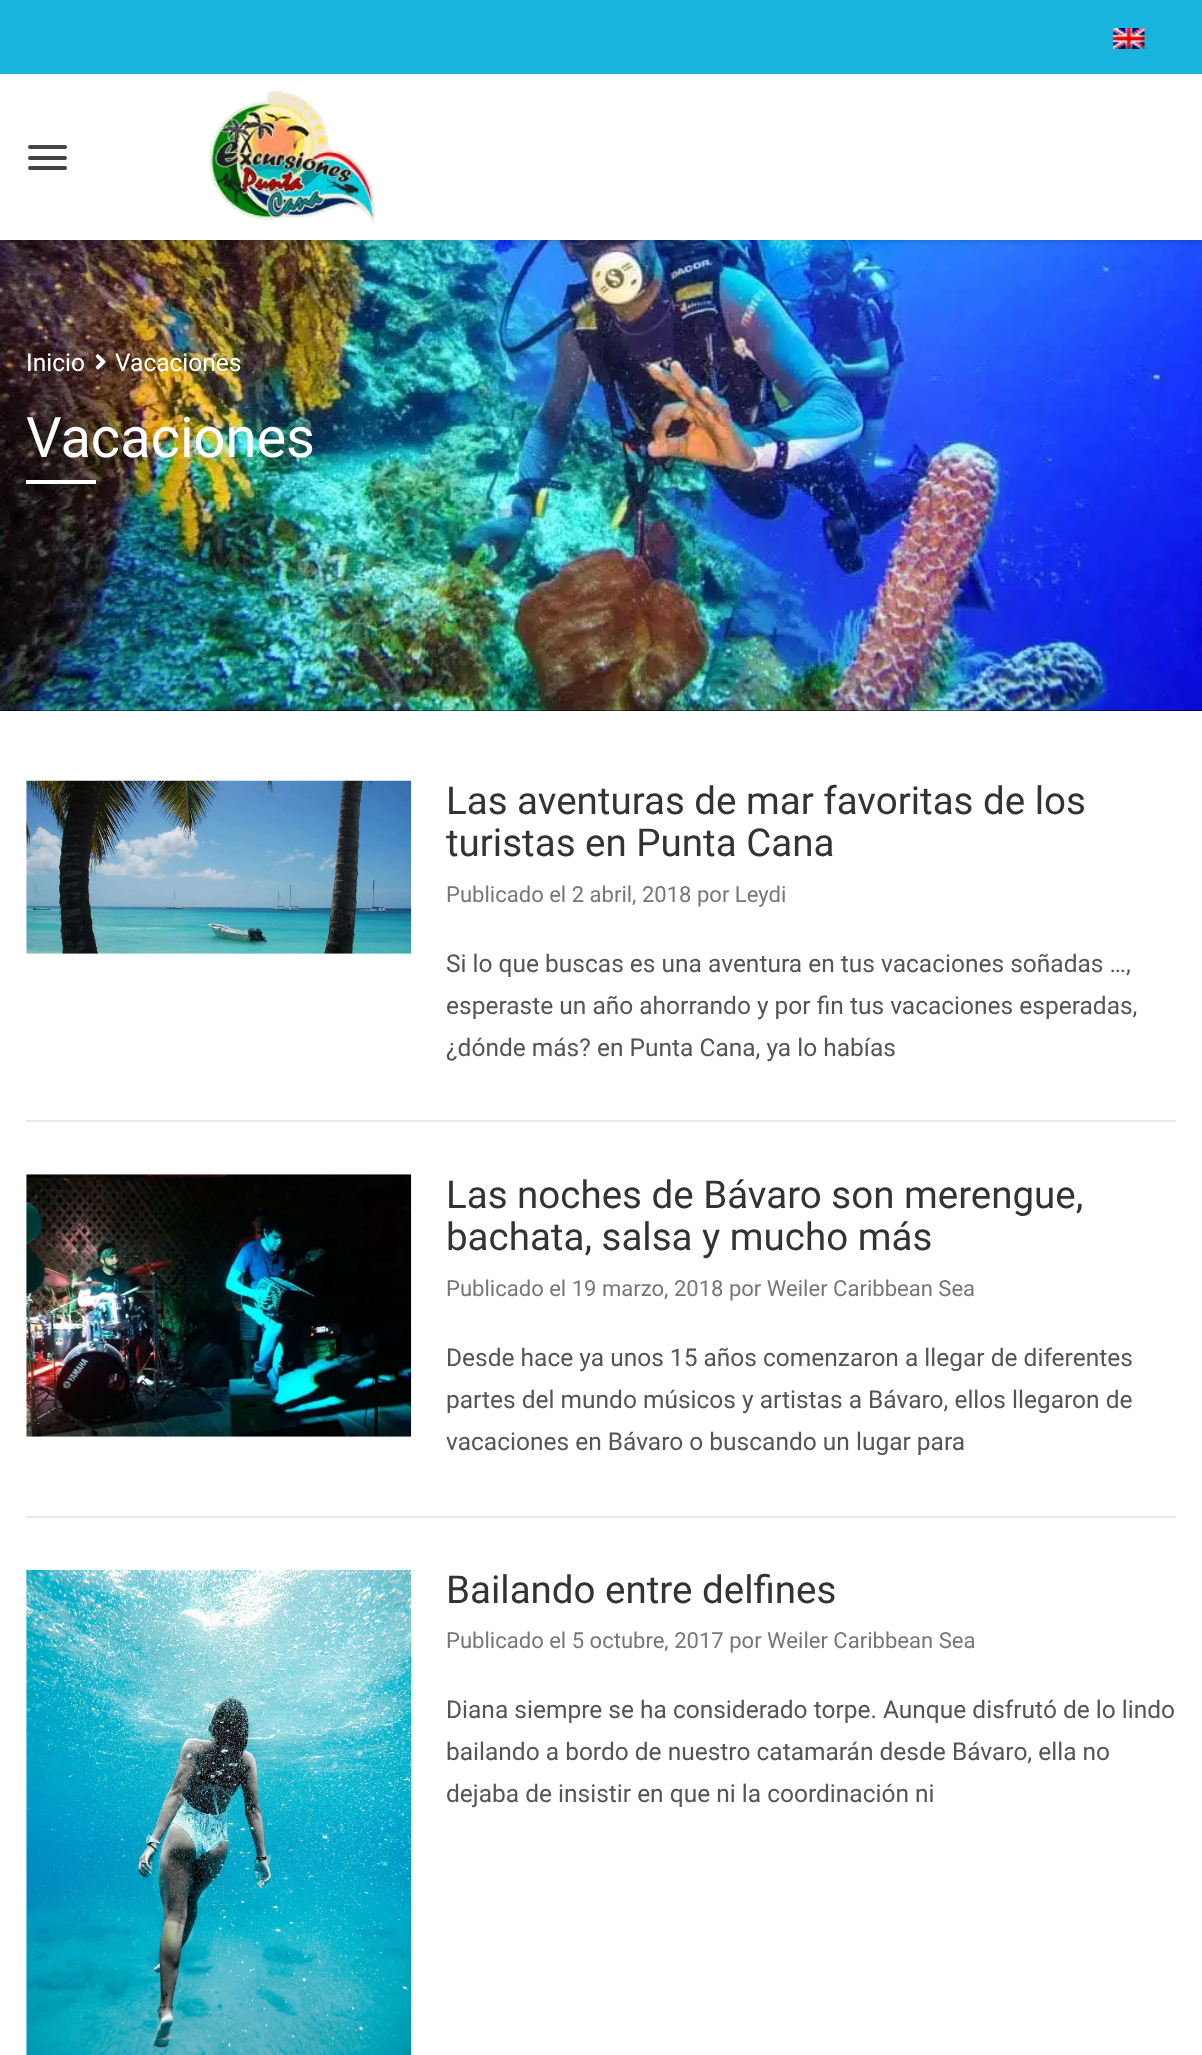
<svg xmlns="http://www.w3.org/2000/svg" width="1202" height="2055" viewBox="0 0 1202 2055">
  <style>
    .t1 { font: 24.5px Roboto; fill: #fff; }
    .t2 { font: 56px Roboto; fill: #fff; }
    .t3 { font: 38.5px Roboto; fill: #333; }
    .t4 { font: 22.05px Roboto; fill: #777; }
    .t5 { font: 24.5px Roboto; fill: #555; }
  </style>
  <rect width="100%" height="100%" fill="#fff"/>
  <rect x="0" y="710" width="1202" height="1" fill="#000"/>
  <image x="0" y="240" width="1202" height="471" href="images/3.png"/>
  <rect x="0" y="2" width="1202" height="240" fill="#00000026" filter="blur(2.5px)"/>
  <rect x="0" y="0" width="1202" height="74" fill="#19b4dd"/>
  <image x="1113" y="28" width="32" height="21" href="images/1.png"/>
  <rect x="0" y="74" width="1202" height="166" fill="#fff"/>
  <rect x="28" y="145" width="39" height="4" rx="2" fill="#444"/>
  <rect x="28" y="156" width="39" height="4" rx="2" fill="#444"/>
  <rect x="28" y="166" width="39" height="4" rx="2" fill="#444"/>
  <image x="209" y="91" width="166" height="132" href="images/2.png"/>
  <text x="26" y="371" class="t1">Inicio</text>
  <image x="95" y="354" width="11" height="16" href="images/4.png"/>
  <text x="115" y="371" class="t1">Vacaciones</text>
  <text x="26" y="457" class="t2">Vacaciones</text>
  <rect x="26" y="480" width="70" height="4" fill="#fff"/>
  <rect x="26" y="1120" width="1150" height="2" fill="#e8e8e8"/>
  <image x="26" y="780" width="386" height="174" href="images/5.png"/>
  <text x="446" y="814" class="t3">Las aventuras de mar favoritas de los</text>
  <text x="446" y="856" class="t3">turistas en Punta Cana</text>
  <text x="446" y="902" class="t4">Publicado el 2 abril, 2018 por Leydi</text>
  <text x="446" y="972" class="t5">Si lo que buscas es una aventura en tus vacaciones soñadas …,</text>
  <text x="446" y="1014" class="t5">esperaste un año ahorrando y por fin tus vacaciones esperadas,</text>
  <text x="446" y="1056" class="t5">¿dónde más? en Punta Cana, ya lo habías</text>
  <rect x="26" y="1516" width="1150" height="2" fill="#e8e8e8"/>
  <image x="26" y="1174" width="386" height="263" href="images/6.png"/>
  <text x="446" y="1208" class="t3">Las noches de Bávaro son merengue,</text>
  <text x="446" y="1250" class="t3">bachata, salsa y mucho más</text>
  <text x="446" y="1296" class="t4">Publicado el 19 marzo, 2018 por Weiler Caribbean Sea</text>
  <text x="446" y="1366" class="t5">Desde hace ya unos 15 años comenzaron a llegar de diferentes</text>
  <text x="446" y="1408" class="t5">partes del mundo músicos y artistas a Bávaro, ellos llegaron de</text>
  <text x="446" y="1450" class="t5">vacaciones en Bávaro o buscando un lugar para</text>
  <image x="26" y="1569" width="386" height="486" href="images/7.png"/>
  <text x="446" y="1603" class="t3">Bailando entre delfines</text>
  <text x="446" y="1648" class="t4">Publicado el 5 octubre, 2017 por Weiler Caribbean Sea</text>
  <text x="446" y="1718" class="t5">Diana siempre se ha considerado torpe. Aunque disfrutó de lo lindo</text>
  <text x="446" y="1760" class="t5">bailando a bordo de nuestro catamarán desde Bávaro, ella no</text>
  <text x="446" y="1802" class="t5">dejaba de insistir en que ni la coordinación ni</text>
</svg>
